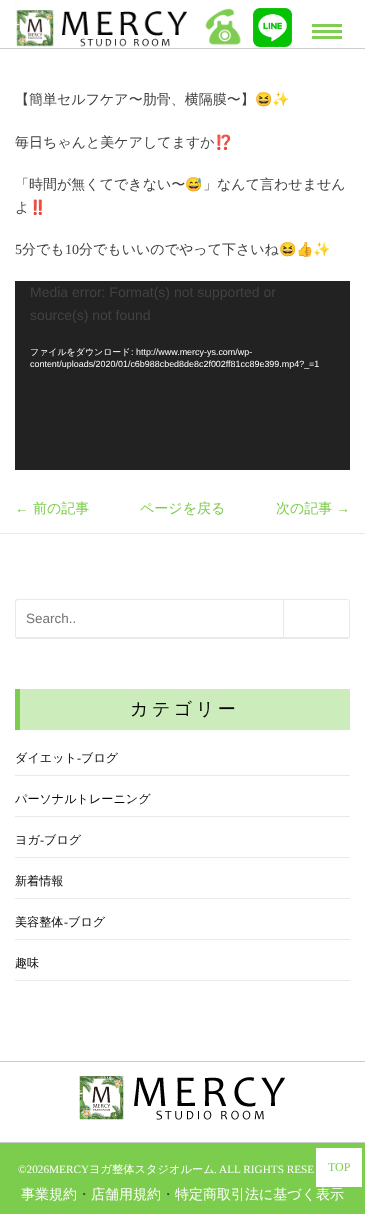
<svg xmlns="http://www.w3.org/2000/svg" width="365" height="1214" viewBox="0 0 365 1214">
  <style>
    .t1 { font: 500 14px WenQuanYi Zen Hei; fill: #424242; }
    .t2 { font: 14px Noto Color Emoji; fill: #424242; }
    .t3 { font: 14px Liberation Serif; fill: #424242; }
    .t4 { font: 14px Liberation Sans; fill: #424242; }
    .t5 { font: 500 8.95px WenQuanYi Zen Hei; fill: #fff; }
    .t6 { font: 8.95px Liberation Sans; fill: #fff; }
    .t7 { font: 14px Liberation Serif; fill: #7ccc4d; }
    .t8 { font: 500 14px WenQuanYi Zen Hei; fill: #7ccc4d; }
    .t9 { font: 13.5px Liberation Sans; fill: #757575; }
    .t10 { font: 500 18px WenQuanYi Zen Hei; letter-spacing: 3.5px; fill: #060606; }
    .t11 { font: 500 12.1px WenQuanYi Zen Hei; fill: #060606; }
    .t12 { font: 12.1px Liberation Serif; fill: #060606; }
    .t13 { font: 12px Liberation Serif; fill: #7ccc4d; }
    .t14 { font: 11.25px Liberation Serif; fill: #fff; }
    .t15 { font: 500 11.25px WenQuanYi Zen Hei; fill: #fff; }
    .t16 { font: 500 14px WenQuanYi Zen Hei; fill: #fff; }
  </style>
  <rect width="100%" height="100%" fill="#fff"/>
  <rect x="0" y="48" width="365" height="1" fill="#cdcdcd"/>
  <rect x="15" y="0" width="5" height="16" fill="#fcfefb"/>
  <image x="16" y="10" width="171" height="37" href="images/1.png"/>
  <image x="205" y="8" width="36" height="37" href="images/2.png"/>
  <image x="253" y="8" width="39" height="39" href="images/3.png"/>
  <rect x="312" y="24" width="30" height="3" fill="#7fcd51"/>
  <rect x="312" y="30" width="30" height="3" fill="#7fcd51"/>
  <rect x="312" y="36" width="30" height="3" fill="#7fcd51"/>
  <rect x="0" y="533" width="365" height="1" fill="#e9e9e9"/>
  <text x="15" y="104" class="t1">【簡単セルフケア〜肋骨、横隔膜〜】</text>
  <text x="255" y="104" class="t2">😆✨</text>
  <text x="15" y="147" class="t1">毎日ちゃんと美ケアしてますか</text>
  <text x="215" y="147" class="t2">⁉️</text>
  <text x="15" y="189" class="t1">「時間が無くてできない〜</text>
  <text x="185" y="189" class="t2">😅</text>
  <text x="203" y="189" class="t1">」なんて言わせません</text>
  <text x="15" y="212" class="t1">よ</text>
  <text x="29" y="212" class="t2">‼️</text>
  <text x="15" y="254" class="t3">5</text>
  <text x="22" y="254" class="t1">分でも</text>
  <text x="65" y="254" class="t3">10</text>
  <text x="79" y="254" class="t1">分でもいいのでやって下さいね</text>
  <text x="279" y="254" class="t2">😆👍✨</text>
  <rect x="15" y="281" width="335" height="189" fill="#222"/>
  <text x="30" y="297" class="t4">Media error: Format(s) not supported or</text>
  <text x="30" y="320" class="t4">source(s) not found</text>
  <text x="30" y="355" class="t5">ファイルをダウンロード</text>
  <text x="131" y="355" class="t6">: http://www.mercy-ys.com/wp-</text>
  <text x="30" y="367" class="t6">content/uploads/2020/01/c6b988cbed8de8c2f002ff81cc89e399.mp4?_=1</text>
  <text x="15" y="513" class="t7">←</text>
  <text x="33" y="513" class="t8">前の記事</text>
  <text x="140" y="513" class="t8">ページを戻る</text>
  <text x="276" y="513" class="t8">次の記事</text>
  <text x="336" y="513" class="t7">→</text>
  <path d="M18 599H283V639H18C16 639 15 638 15 636V602C15 600 16 599 18 599ZM18 600H283V637H18C17 637 16 637 16 636V602C16 601 17 600 18 600Z" fill="#e9e9e9" fill-rule="evenodd"/>
  <text x="26" y="623" class="t9">Search..</text>
  <path d="M283.5 599.5H347C348.5 599.5 349.5 600.5 349.5 602V636C349.5 637.5 348.5 638.5 347 638.5H283.5Z" fill="none" stroke="#e9e9e9"/>
  <rect x="283" y="637" width="66" height="1" fill="#e9e9e9"/>
  <rect x="20" y="689" width="330" height="41" fill="#cdecbb"/>
  <rect x="15" y="689" width="5" height="41" fill="#7ccc4d"/>
  <text x="130" y="715" class="t10">カテゴリー</text>
  <rect x="15" y="775" width="335" height="1" fill="#e9e9e9"/>
  <text x="15" y="762" class="t11">ダイエット</text>
  <text x="77" y="762" class="t12">-</text>
  <text x="81" y="762" class="t11">ブログ</text>
  <rect x="15" y="816" width="335" height="1" fill="#e9e9e9"/>
  <text x="15" y="803" class="t11">パーソナルトレーニング</text>
  <rect x="15" y="857" width="335" height="1" fill="#e9e9e9"/>
  <text x="15" y="844" class="t11">ヨガ</text>
  <text x="40" y="844" class="t12">-</text>
  <text x="44" y="844" class="t11">ブログ</text>
  <rect x="15" y="898" width="335" height="1" fill="#e9e9e9"/>
  <text x="15" y="885" class="t11">新着情報</text>
  <rect x="15" y="939" width="335" height="1" fill="#e9e9e9"/>
  <text x="15" y="926" class="t11">美容整体</text>
  <text x="64" y="926" class="t12">-</text>
  <text x="68" y="926" class="t11">ブログ</text>
  <rect x="15" y="980" width="335" height="1" fill="#e9e9e9"/>
  <text x="15" y="967" class="t11">趣味</text>
  <rect x="0" y="1143" width="365" height="71" fill="#7ccc4d"/>
  <rect x="314.5" y="1146.5" width="49" height="42" fill="#fff" stroke="#7ccc4d" stroke-width="3"/>
  <text x="328" y="1171" class="t13">TOP</text>
  <rect x="0" y="1061" width="365" height="1" fill="#ccc"/>
  <image x="79" y="1076" width="206" height="44" href="images/4.png"/>
  <rect x="0" y="1142" width="365" height="1" fill="#ccc"/>
  <text x="18" y="1173" class="t14">©2026MERCY</text>
  <text x="89" y="1173" class="t15">ヨガ整体スタジオルーム</text>
  <text x="214" y="1173" class="t14">. ALL RIGHTS RESE</text>
  <text x="21" y="1199" class="t16">事業規約</text>
  <text x="77" y="1199" class="t1">・</text>
  <text x="91" y="1199" class="t16">店舗用規約</text>
  <text x="161" y="1199" class="t1">・</text>
  <text x="175" y="1199" class="t16">特定商取引法に基づく表示</text>
</svg>
